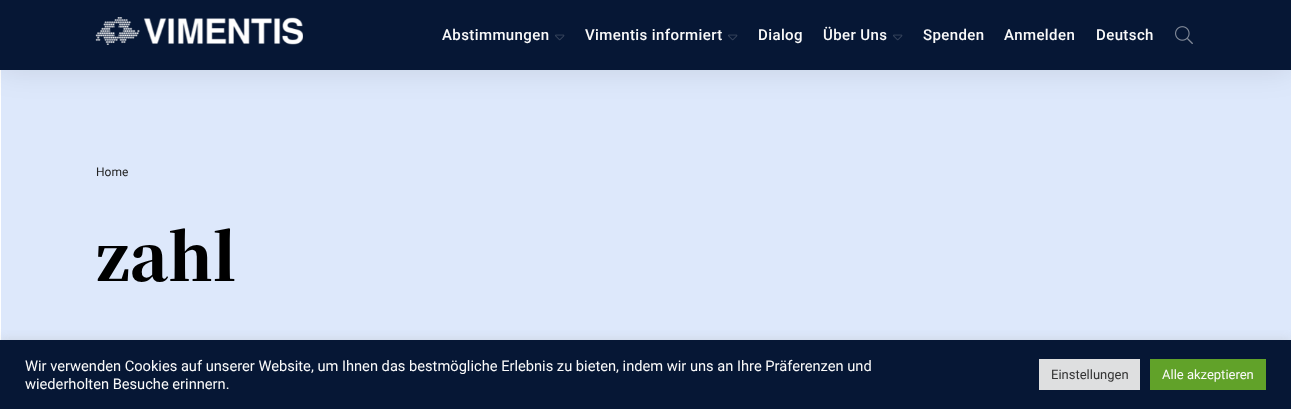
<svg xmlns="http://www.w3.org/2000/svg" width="1291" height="409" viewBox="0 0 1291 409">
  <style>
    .t1 { font: 500 15px Roboto; letter-spacing: 0.4px; fill: #fafafa; }
    .t2 { font: 12px Roboto; fill: #242424; }
    .t3 { font: 900 64px Noto Serif JP; fill: #000; }
    .t4 { font: 14.67px Roboto; fill: #fafafa; }
    .t5 { font: 13px Roboto; fill: #333; }
    .t6 { font: 13px Roboto; fill: #fafafa; }
  </style>
  <rect width="100%" height="100%" fill="#fff"/>
  <rect x="1" y="70" width="1290" height="270" fill="#dde8fb"/>
  <rect x="0" y="0" width="1291" height="70" fill="#0000001a" filter="blur(15px)"/>
  <rect x="0" y="0" width="1291" height="70" fill="#061735"/>
  <image x="95" y="17" width="208" height="28" href="images/1.png"/>
  <text x="442" y="40" class="t1">Abstimmungen</text>
  <image x="555" y="34" width="10" height="7" href="images/2.png"/>
  <text x="585" y="40" class="t1">Vimentis informiert</text>
  <image x="728" y="34" width="10" height="7" href="images/2.png"/>
  <text x="758" y="40" class="t1">Dialog</text>
  <text x="823" y="40" class="t1">Über Uns</text>
  <image x="893" y="34" width="10" height="7" href="images/2.png"/>
  <text x="923" y="40" class="t1">Spenden</text>
  <text x="1004" y="40" class="t1">Anmelden</text>
  <text x="1096" y="40" class="t1">Deutsch</text>
  <image x="1175" y="26" width="18" height="18" href="images/3.png"/>
  <text x="96" y="176" class="t2">Home</text>
  <text x="96" y="281" class="t3">zahl</text>
  <rect x="0" y="339" width="1291" height="69" fill="#acabab4d" filter="blur(5px)"/>
  <rect x="0" y="340" width="1291" height="69" fill="#061735"/>
  <text x="25" y="371" class="t4">Wir verwenden Cookies auf unserer Website, um Ihnen das bestmögliche Erlebnis zu bieten, indem wir uns an Ihre Präferenzen und</text>
  <text x="25" y="389" class="t4">wiederholten Besuche erinnern.</text>
  <rect x="1039" y="359" width="101" height="31" fill="#dedfe0"/>
  <text x="1051" y="379" class="t5">Einstellungen</text>
  <rect x="1150" y="359" width="116" height="31" fill="#61a229"/>
  <text x="1162" y="379" class="t6">Alle akzeptieren</text>
</svg>
